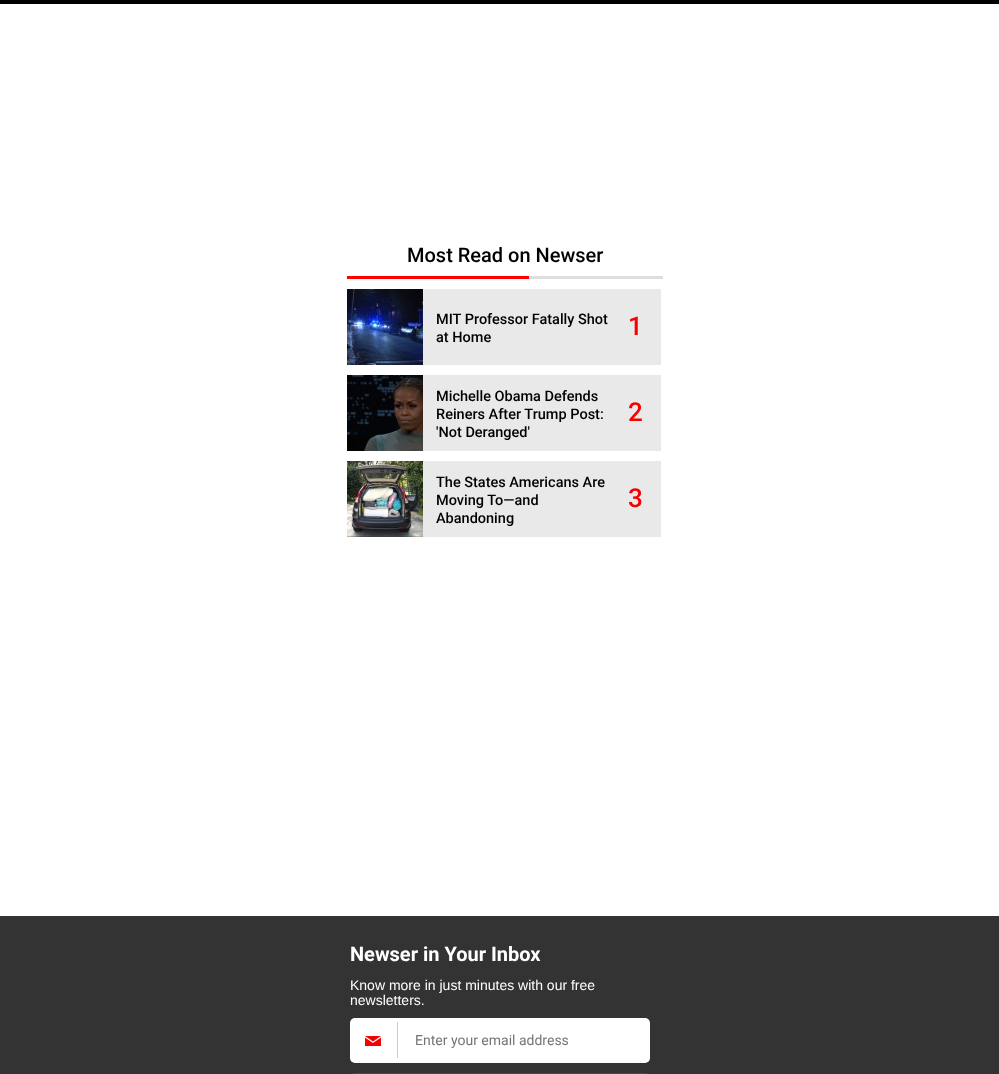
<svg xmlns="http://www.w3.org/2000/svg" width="999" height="1074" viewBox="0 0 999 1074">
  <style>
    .t1 { font: 500 20px Roboto; fill: #000; }
    .t2 { font: 500 14.5px Roboto; fill: #000; }
    .t3 { font: 500 26px Roboto; fill: #f60001; }
    .t4 { font: bold 20px Roboto; fill: #fff; }
    .t5 { font: 14px Liberation Sans; fill: #fff; }
    .t6 { font: 14px Roboto; fill: #757575; }
  </style>
  <rect width="100%" height="100%" fill="#fff"/>
  <rect x="0" y="0" width="999" height="4" fill="#000"/>
  <text x="407" y="262" class="t1">Most Read on Newser</text>
  <rect x="347" y="276" width="182" height="3" fill="#f00"/>
  <rect x="529" y="276" width="134" height="3" fill="#dedede"/>
  <rect x="423" y="289" width="238" height="76" fill="#e9e9e9"/>
  <image x="347" y="289" width="76" height="76" href="images/1.png"/>
  <text x="436" y="324" class="t2">MIT Professor Fatally Shot</text>
  <text x="436" y="342" class="t2">at Home</text>
  <text x="628" y="335" class="t3">1</text>
  <rect x="423" y="375" width="238" height="76" fill="#e9e9e9"/>
  <image x="347" y="375" width="76" height="76" href="images/2.png"/>
  <text x="436" y="401" class="t2">Michelle Obama Defends</text>
  <text x="436" y="419" class="t2">Reiners After Trump Post:</text>
  <text x="436" y="437" class="t2">'Not Deranged'</text>
  <text x="628" y="421" class="t3">2</text>
  <rect x="423" y="461" width="238" height="76" fill="#e9e9e9"/>
  <image x="347" y="461" width="76" height="76" href="images/3.png"/>
  <text x="436" y="487" class="t2">The States Americans Are</text>
  <text x="436" y="505" class="t2">Moving To—and</text>
  <text x="436" y="523" class="t2">Abandoning</text>
  <text x="628" y="507" class="t3">3</text>
  <rect x="0" y="916" width="999" height="158" fill="#333"/>
  <text x="350" y="961" class="t4">Newser in Your Inbox</text>
  <text x="350" y="990" class="t5">Know more in just minutes with our free</text>
  <text x="350" y="1005" class="t5">newsletters.</text>
  <rect x="350" y="1018" width="300" height="45" rx="5" fill="#fff"/>
  <path d="M373 1043L365 1037.5V1046H381V1037.5ZM381 1036H365L373 1041.5Z" fill="#f70002" fill-rule="evenodd"/>
  <rect x="397" y="1022" width="1" height="36" fill="#ccc"/>
  <text x="415" y="1045" class="t6">Enter your email address</text>
  <rect x="350" y="1073" width="300" height="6" rx="5" fill="#f70002"/>
</svg>
